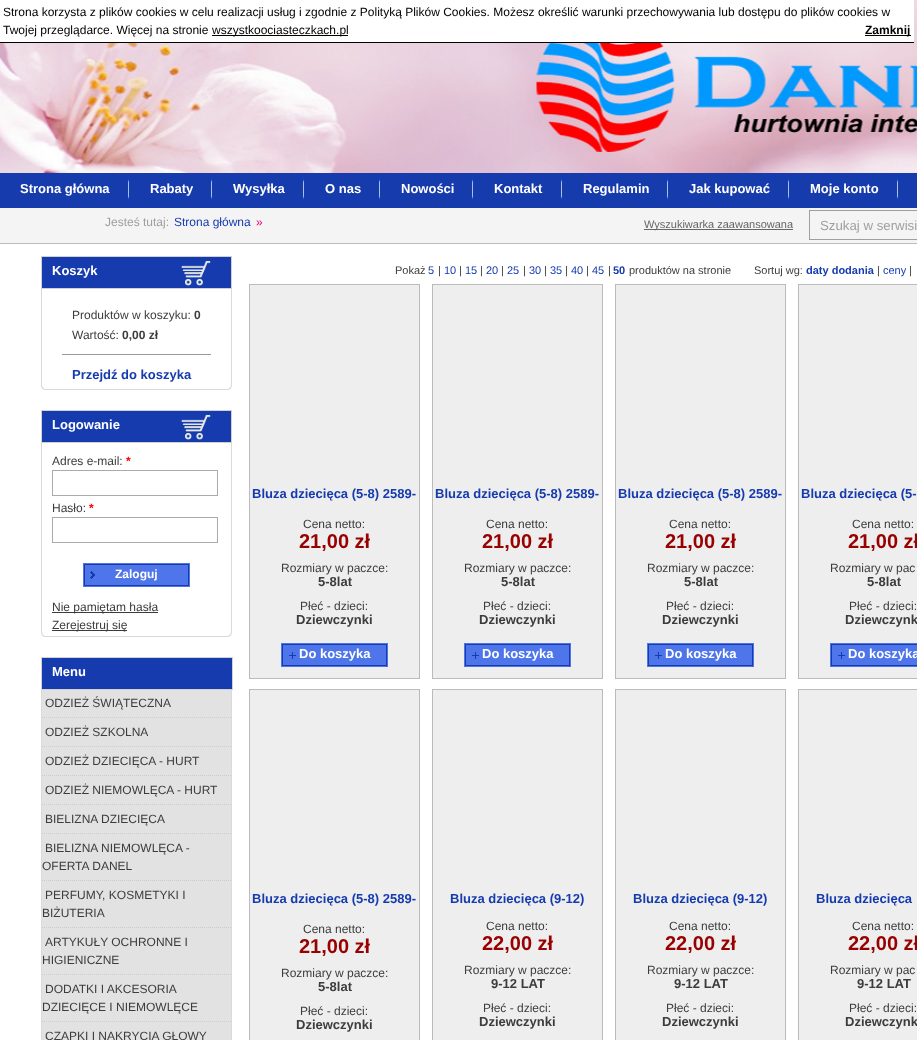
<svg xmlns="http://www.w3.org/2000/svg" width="917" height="1040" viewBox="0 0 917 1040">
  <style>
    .t1 { font: 12px Liberation Sans; fill: #000; }
    .t2 { font: bold 12px Liberation Sans; fill: #000; }
    .t3 { font: bold 13px Liberation Sans; fill: #fff; }
    .t4 { font: 12px Liberation Sans; fill: #9f9f9f; }
    .t5 { font: 12px Liberation Sans; fill: #163bae; }
    .t6 { font: 12px Liberation Sans; fill: #e40175; }
    .t7 { font: 12px Liberation Sans; fill: #3c3c3c; }
    .t8 { font: bold 12px Liberation Sans; fill: #3c3c3c; }
    .t9 { font: bold 13px Liberation Sans; fill: #163bae; }
    .t10 { font: bold 12px Liberation Sans; fill: #f00; }
    .t11 { font: bold 12px Liberation Sans; fill: #fff; }
    .t12 { font: 11px Liberation Sans; fill: #3c3c3c; }
    .t13 { font: 11px Liberation Sans; fill: #163bae; }
    .t14 { font: bold 11px Liberation Sans; fill: #163bae; }
    .t15 { font: bold 20px Liberation Sans; fill: #900; }
    .t16 { font: bold 13px Liberation Sans; fill: #3c3c3c; }
    .t17 { font: 11px Liberation Sans; fill: #666; }
    .t18 { font: 13.25px Liberation Sans; fill: #9f9f9f; }
  </style>
  <rect width="100%" height="100%" fill="#fff"/>
  <image x="0" y="0" width="917" height="173" href="images/6.png"/>
  <rect x="0" y="0" width="914" height="42" fill="#fff"/>
  <rect x="0" y="42" width="914" height="1" fill="#000"/>
  <text x="3" y="16" class="t1">Strona korzysta z plików cookies w celu realizacji usług i zgodnie z Polityką Plików Cookies. Możesz określić warunki przechowywania lub dostępu do plików cookies w</text>
  <text x="3" y="34" class="t1">Twojej przeglądarce. Więcej na stronie</text>
  <rect x="212" y="35" width="136" height="1" fill="#000"/>
  <text x="212" y="34" class="t1">wszystkoociasteczkach.pl</text>
  <rect x="865" y="35" width="46" height="1" fill="#000"/>
  <text x="865" y="34" class="t2">Zamknij</text>
  <rect x="0" y="173" width="917" height="35" fill="#163bad"/>
  <image x="127" y="177" width="3" height="24" href="images/1.png"/>
  <text x="20" y="193" class="t3">Strona główna</text>
  <image x="210" y="177" width="3" height="24" href="images/1.png"/>
  <text x="150" y="193" class="t3">Rabaty</text>
  <image x="302" y="177" width="3" height="24" href="images/1.png"/>
  <text x="233" y="193" class="t3">Wysyłka</text>
  <image x="378" y="177" width="3" height="24" href="images/1.png"/>
  <text x="325" y="193" class="t3">O nas</text>
  <image x="471" y="177" width="3" height="24" href="images/1.png"/>
  <text x="401" y="193" class="t3">Nowości</text>
  <image x="560" y="177" width="3" height="24" href="images/1.png"/>
  <text x="494" y="193" class="t3">Kontakt</text>
  <image x="666" y="177" width="3" height="24" href="images/1.png"/>
  <text x="583" y="193" class="t3">Regulamin</text>
  <image x="787" y="177" width="3" height="24" href="images/1.png"/>
  <text x="689" y="193" class="t3">Jak kupować</text>
  <image x="896" y="177" width="3" height="24" href="images/1.png"/>
  <text x="810" y="193" class="t3">Moje konto</text>
  <rect x="0" y="208" width="917" height="35" fill="#f4f4f4"/>
  <rect x="0" y="243" width="917" height="1" fill="#bbb"/>
  <text x="105" y="226" class="t4">Jesteś tutaj:</text>
  <text x="174" y="226" class="t5">Strona główna</text>
  <text x="256" y="226" class="t6">»</text>
  <path d="M41 256H232V385C232 388 230 390 227 390H46C43 390 41 388 41 385ZM42 256H231V385C231 387 229 389 227 389H46C44 389 42 387 42 385Z" fill="#dadada" fill-rule="evenodd"/>
  <rect x="41.5" y="256.5" width="190" height="32" fill="#163bae" stroke="#d1d1d1"/>
  <text x="52" y="275" class="t3">Koszyk</text>
  <image x="181" y="261" width="30" height="25" href="images/2.png"/>
  <text x="72" y="319" class="t7">Produktów w koszyku:</text>
  <text x="194" y="319" class="t8">0</text>
  <text x="72" y="339" class="t7">Wartość:</text>
  <text x="122" y="339" class="t8">0,00 zł</text>
  <rect x="62" y="354" width="149" height="1" fill="#999"/>
  <text x="72" y="379" class="t9">Przejdź do koszyka</text>
  <path d="M41 410H232V632C232 635 230 637 227 637H46C43 637 41 635 41 632ZM42 410H231V632C231 634 229 636 227 636H46C44 636 42 634 42 632Z" fill="#dadada" fill-rule="evenodd"/>
  <rect x="41.5" y="410.5" width="190" height="32" fill="#163bae" stroke="#d1d1d1"/>
  <text x="52" y="429" class="t3">Logowanie</text>
  <image x="181" y="415" width="30" height="25" href="images/2.png"/>
  <text x="52" y="465" class="t7">Adres e-mail:</text>
  <text x="126" y="465" class="t10">*</text>
  <rect x="52.5" y="470.5" width="165" height="25" fill="none" stroke="#aaa"/>
  <text x="52" y="512" class="t7">Hasło:</text>
  <text x="89" y="512" class="t10">*</text>
  <rect x="52.5" y="517.5" width="165" height="25" fill="none" stroke="#aaa"/>
  <image x="83" y="563" width="107" height="24" href="images/3.png"/>
  <text x="115" y="578" class="t11">Zaloguj</text>
  <rect x="52" y="612" width="106" height="1" fill="#3c3c3c"/>
  <text x="52" y="611" class="t7">Nie pamiętam hasła</text>
  <rect x="52" y="630" width="75" height="1" fill="#3c3c3c"/>
  <text x="52" y="629" class="t7">Zerejestruj się</text>
  <path d="M41 657H232V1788C232 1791 230 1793 227 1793H46C43 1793 41 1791 41 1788ZM42 657H231V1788C231 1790 229 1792 227 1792H46C44 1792 42 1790 42 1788Z" fill="#dadada" fill-rule="evenodd"/>
  <rect x="41.5" y="657.5" width="191" height="32" fill="#163bae" stroke="#d1d1d1"/>
  <text x="52" y="676" class="t3">Menu</text>
  <rect x="42" y="690" width="189" height="350" fill="#e2e2e2"/>
  <path d="M42 717.5H231" fill="none" stroke="#ccc" stroke-dasharray="1 1"/>
  <text x="45" y="707" class="t7">ODZIEŻ ŚWIĄTECZNA</text>
  <path d="M42 746.5H231" fill="none" stroke="#ccc" stroke-dasharray="1 1"/>
  <text x="45" y="736" class="t7">ODZIEŻ SZKOLNA</text>
  <path d="M42 775.5H231" fill="none" stroke="#ccc" stroke-dasharray="1 1"/>
  <text x="45" y="765" class="t7">ODZIEŻ DZIECIĘCA - HURT</text>
  <path d="M42 804.5H231" fill="none" stroke="#ccc" stroke-dasharray="1 1"/>
  <text x="45" y="794" class="t7">ODZIEŻ NIEMOWLĘCA - HURT</text>
  <path d="M42 833.5H231" fill="none" stroke="#ccc" stroke-dasharray="1 1"/>
  <text x="45" y="823" class="t7">BIELIZNA DZIECIĘCA</text>
  <path d="M42 880.5H231" fill="none" stroke="#ccc" stroke-dasharray="1 1"/>
  <text x="45" y="852" class="t7">BIELIZNA NIEMOWLĘCA -</text>
  <text x="42" y="870" class="t7">OFERTA DANEL</text>
  <path d="M42 927.5H231" fill="none" stroke="#ccc" stroke-dasharray="1 1"/>
  <text x="45" y="899" class="t7">PERFUMY, KOSMETYKI I</text>
  <text x="42" y="917" class="t7">BIŻUTERIA</text>
  <path d="M42 974.5H231" fill="none" stroke="#ccc" stroke-dasharray="1 1"/>
  <text x="45" y="946" class="t7">ARTYKUŁY OCHRONNE I</text>
  <text x="42" y="964" class="t7">HIGIENICZNE</text>
  <path d="M42 1021.5H231" fill="none" stroke="#ccc" stroke-dasharray="1 1"/>
  <text x="45" y="993" class="t7">DODATKI I AKCESORIA</text>
  <text x="42" y="1011" class="t7">DZIECIĘCE I NIEMOWLĘCE</text>
  <text x="45" y="1040" class="t7">CZAPKI I NAKRYCIA GŁOWY</text>
  <text x="395" y="274" class="t12">Pokaż</text>
  <text x="428" y="274" class="t13">5</text>
  <text x="438" y="274" class="t12">|</text>
  <text x="444" y="274" class="t13">10</text>
  <text x="459" y="274" class="t12">|</text>
  <text x="465" y="274" class="t13">15</text>
  <text x="480" y="274" class="t12">|</text>
  <text x="486" y="274" class="t13">20</text>
  <text x="501" y="274" class="t12">|</text>
  <text x="507" y="274" class="t13">25</text>
  <text x="523" y="274" class="t12">|</text>
  <text x="529" y="274" class="t13">30</text>
  <text x="544" y="274" class="t12">|</text>
  <text x="550" y="274" class="t13">35</text>
  <text x="565" y="274" class="t12">|</text>
  <text x="571" y="274" class="t13">40</text>
  <text x="586" y="274" class="t12">|</text>
  <text x="592" y="274" class="t13">45</text>
  <text x="608" y="274" class="t12">|</text>
  <text x="613" y="274" class="t14">50</text>
  <text x="629" y="274" class="t12">produktów na stronie</text>
  <text x="754" y="274" class="t12">Sortuj wg:</text>
  <text x="806" y="274" class="t14">daty dodania</text>
  <text x="877" y="274" class="t12">|</text>
  <text x="883" y="274" class="t13">ceny</text>
  <text x="909" y="274" class="t12">|</text>
  <rect x="249.5" y="284.5" width="170" height="394" fill="#eee" stroke="#bbb"/>
  <text x="252" y="498" class="t9">Bluza dziecięca (5-8) 2589-</text>
  <text x="303" y="528" class="t7">Cena netto:</text>
  <text x="299" y="548" class="t15">21,00 zł</text>
  <text x="281" y="572" class="t7">Rozmiary w paczce:</text>
  <text x="318" y="586" class="t16">5-8lat</text>
  <text x="300" y="610" class="t7">Płeć - dzieci:</text>
  <text x="296" y="624" class="t16">Dziewczynki</text>
  <image x="281" y="643" width="107" height="24" href="images/4.png"/>
  <text x="299" y="658" class="t3">Do koszyka</text>
  <rect x="432.5" y="284.5" width="170" height="394" fill="#eee" stroke="#bbb"/>
  <text x="435" y="498" class="t9">Bluza dziecięca (5-8) 2589-</text>
  <text x="486" y="528" class="t7">Cena netto:</text>
  <text x="482" y="548" class="t15">21,00 zł</text>
  <text x="464" y="572" class="t7">Rozmiary w paczce:</text>
  <text x="501" y="586" class="t16">5-8lat</text>
  <text x="483" y="610" class="t7">Płeć - dzieci:</text>
  <text x="479" y="624" class="t16">Dziewczynki</text>
  <image x="464" y="643" width="107" height="24" href="images/4.png"/>
  <text x="482" y="658" class="t3">Do koszyka</text>
  <rect x="615.5" y="284.5" width="170" height="394" fill="#eee" stroke="#bbb"/>
  <text x="618" y="498" class="t9">Bluza dziecięca (5-8) 2589-</text>
  <text x="669" y="528" class="t7">Cena netto:</text>
  <text x="665" y="548" class="t15">21,00 zł</text>
  <text x="647" y="572" class="t7">Rozmiary w paczce:</text>
  <text x="684" y="586" class="t16">5-8lat</text>
  <text x="666" y="610" class="t7">Płeć - dzieci:</text>
  <text x="662" y="624" class="t16">Dziewczynki</text>
  <image x="647" y="643" width="107" height="24" href="images/4.png"/>
  <text x="665" y="658" class="t3">Do koszyka</text>
  <rect x="798.5" y="284.5" width="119" height="394" fill="#eee" stroke="#bbb"/>
  <text x="801" y="498" class="t9">Bluza dziecięca (5-</text>
  <text x="852" y="528" class="t7">Cena netto:</text>
  <text x="848" y="548" class="t15">21,00 zł</text>
  <text x="830" y="572" class="t7">Rozmiary w pac</text>
  <text x="867" y="586" class="t16">5-8lat</text>
  <text x="849" y="610" class="t7">Płeć - dzieci:</text>
  <text x="845" y="624" class="t16">Dziewczynk</text>
  <image x="830" y="643" width="87" height="24" href="images/5.png"/>
  <text x="848" y="658" class="t3">Do koszyka</text>
  <rect x="249.5" y="689.5" width="170" height="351" fill="#eee" stroke="#bbb"/>
  <text x="252" y="903" class="t9">Bluza dziecięca (5-8) 2589-</text>
  <text x="303" y="933" class="t7">Cena netto:</text>
  <text x="299" y="953" class="t15">21,00 zł</text>
  <text x="281" y="977" class="t7">Rozmiary w paczce:</text>
  <text x="318" y="991" class="t16">5-8lat</text>
  <text x="300" y="1015" class="t7">Płeć - dzieci:</text>
  <text x="296" y="1029" class="t16">Dziewczynki</text>
  <rect x="432.5" y="689.5" width="170" height="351" fill="#eee" stroke="#bbb"/>
  <text x="450" y="903" class="t9">Bluza dziecięca (9-12)</text>
  <text x="486" y="930" class="t7">Cena netto:</text>
  <text x="482" y="950" class="t15">22,00 zł</text>
  <text x="464" y="974" class="t7">Rozmiary w paczce:</text>
  <text x="491" y="988" class="t16">9-12 LAT</text>
  <text x="483" y="1012" class="t7">Płeć - dzieci:</text>
  <text x="479" y="1026" class="t16">Dziewczynki</text>
  <rect x="615.5" y="689.5" width="170" height="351" fill="#eee" stroke="#bbb"/>
  <text x="633" y="903" class="t9">Bluza dziecięca (9-12)</text>
  <text x="669" y="930" class="t7">Cena netto:</text>
  <text x="665" y="950" class="t15">22,00 zł</text>
  <text x="647" y="974" class="t7">Rozmiary w paczce:</text>
  <text x="674" y="988" class="t16">9-12 LAT</text>
  <text x="666" y="1012" class="t7">Płeć - dzieci:</text>
  <text x="662" y="1026" class="t16">Dziewczynki</text>
  <rect x="798.5" y="689.5" width="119" height="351" fill="#eee" stroke="#bbb"/>
  <text x="816" y="903" class="t9">Bluza dziecięca</text>
  <text x="852" y="930" class="t7">Cena netto:</text>
  <text x="848" y="950" class="t15">22,00 zł</text>
  <text x="830" y="974" class="t7">Rozmiary w pac</text>
  <text x="857" y="988" class="t16">9-12 LAT</text>
  <text x="849" y="1012" class="t7">Płeć - dzieci:</text>
  <text x="845" y="1026" class="t16">Dziewczynk</text>
  <rect x="644" y="229" width="149" height="1" fill="#666"/>
  <text x="644" y="228" class="t17">Wyszukiwarka zaawansowana</text>
  <rect x="809.5" y="210.5" width="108" height="29" fill="none" stroke="#9f9f9f"/>
  <text x="820" y="230" class="t18">Szukaj w serwisi</text>
</svg>
